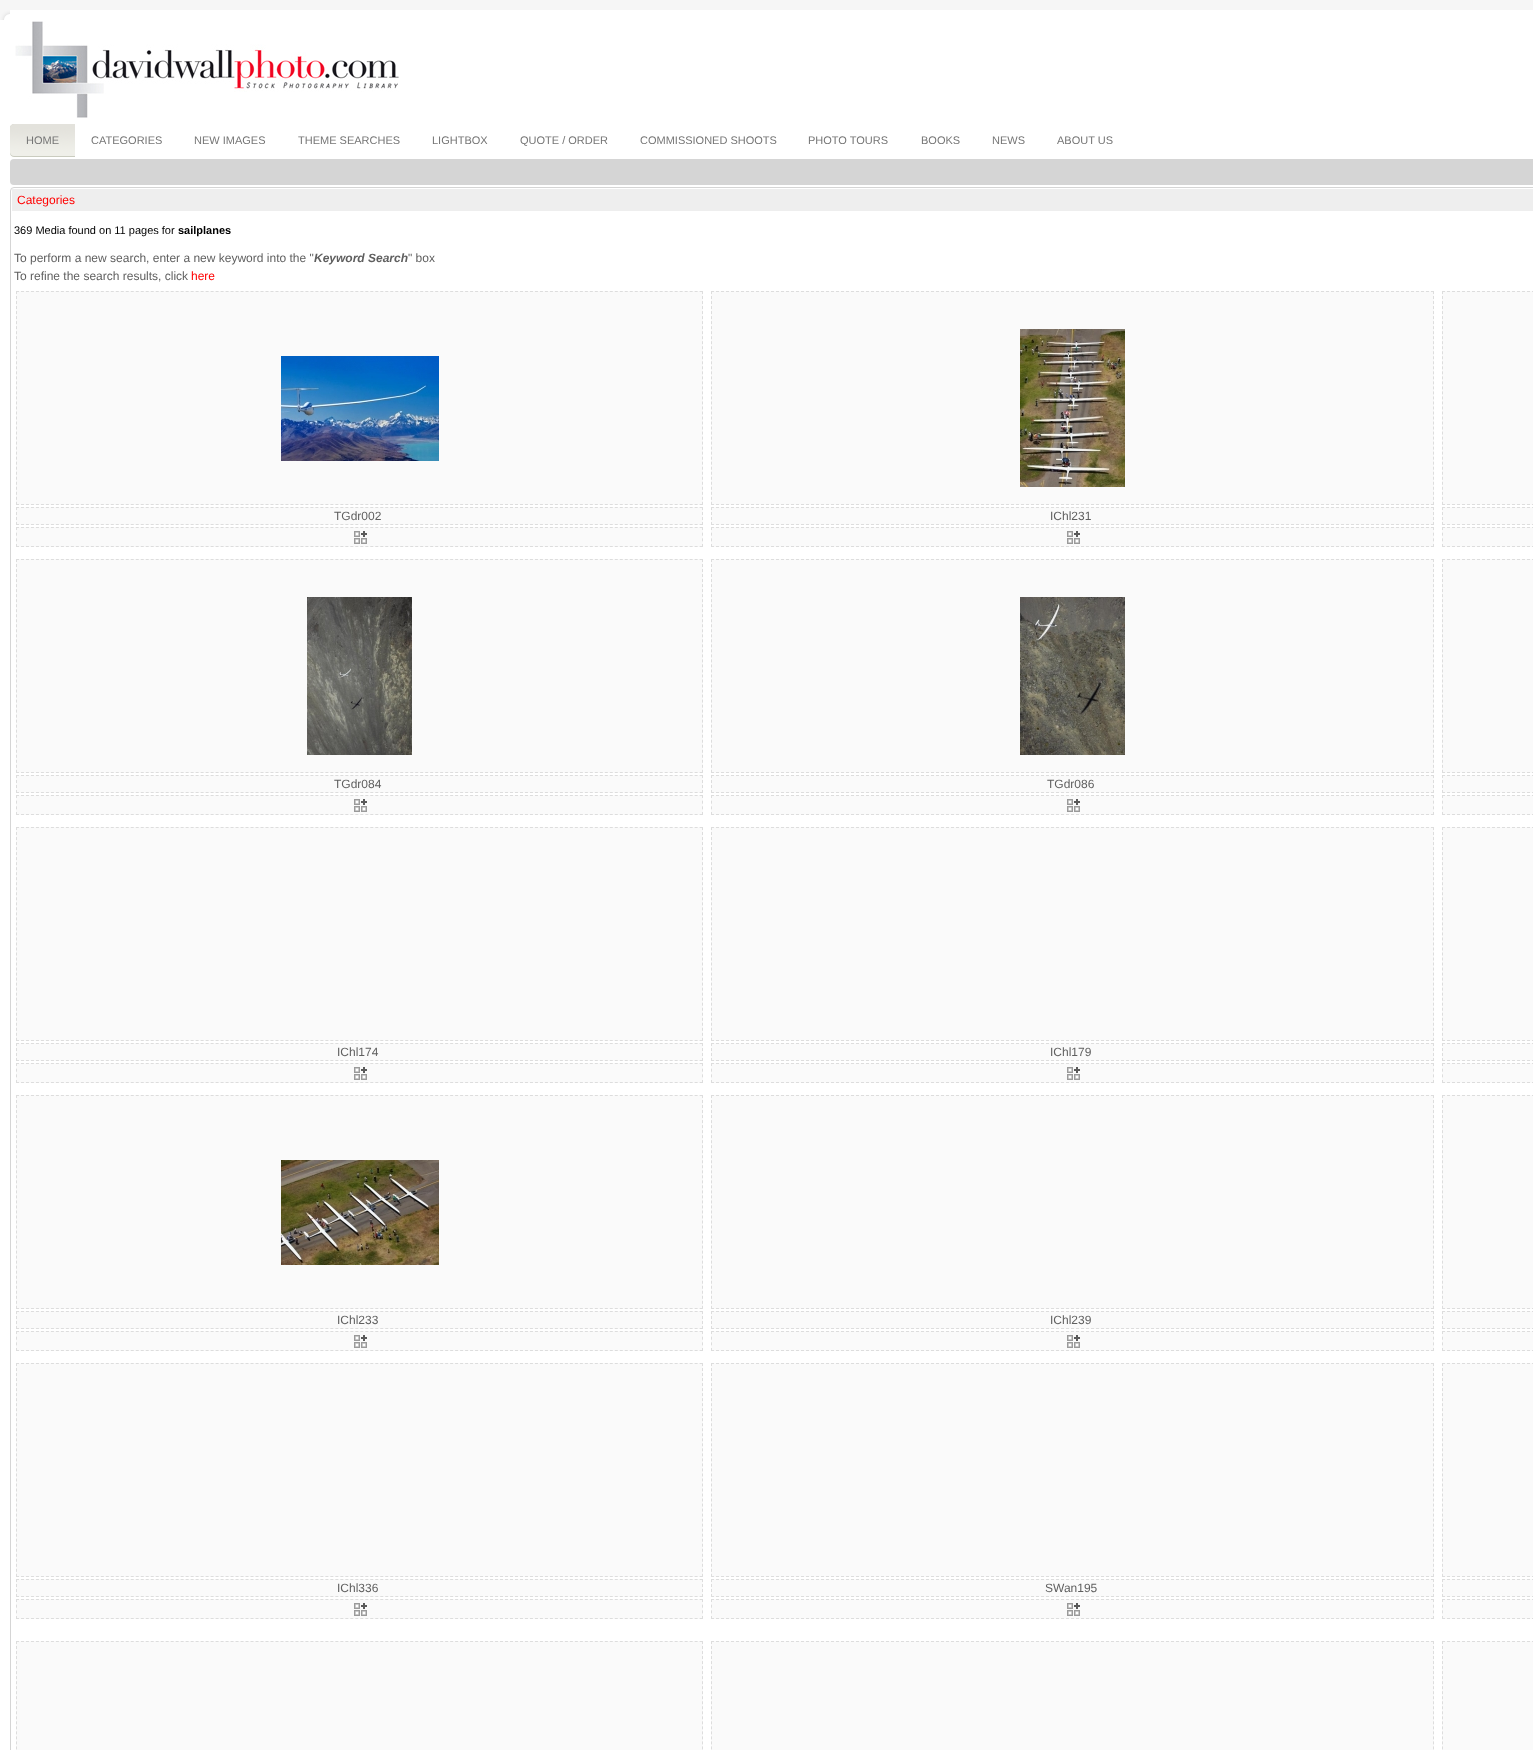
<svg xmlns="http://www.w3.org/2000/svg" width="1533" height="1750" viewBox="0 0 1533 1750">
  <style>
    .t1 { font: 11px Liberation Sans; fill: #757575; }
    .t2 { font: 12px Liberation Sans; fill: #f00; }
    .t3 { font: 11px Liberation Sans; fill: #000; }
    .t4 { font: bold 11px Liberation Sans; fill: #000; }
    .t5 { font: 12px Liberation Sans; fill: #5f5f5f; }
    .t6 { font: italic bold 12px Liberation Sans; fill: #5f5f5f; }
  </style>
  <rect width="100%" height="100%" fill="#f6f6f6"/>
  <rect x="0" y="10" width="1533" height="1740" fill="#fff"/>
  <image x="0" y="10" width="10" height="10" href="images/1.png"/>
  <image x="15" y="21" width="384" height="97" href="images/2.png"/>
  <image x="10" y="124" width="65" height="33" href="images/3.png"/>
  <text x="26" y="144" class="t1">HOME</text>
  <text x="91" y="144" class="t1">CATEGORIES</text>
  <text x="194" y="144" class="t1">NEW IMAGES</text>
  <text x="298" y="144" class="t1">THEME SEARCHES</text>
  <text x="432" y="144" class="t1">LIGHTBOX</text>
  <text x="520" y="144" class="t1">QUOTE / ORDER</text>
  <text x="640" y="144" class="t1">COMMISSIONED SHOOTS</text>
  <text x="808" y="144" class="t1">PHOTO TOURS</text>
  <text x="921" y="144" class="t1">BOOKS</text>
  <text x="992" y="144" class="t1">NEWS</text>
  <text x="1057" y="144" class="t1">ABOUT US</text>
  <rect x="10" y="159" width="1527" height="26" rx="4" fill="#d5d5d5"/>
  <rect x="10.5" y="187.5" width="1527" height="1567" rx="3.5" fill="none" stroke="#d5d5d5"/>
  <rect x="12" y="189" width="1521" height="22" fill="#eee"/>
  <text x="17" y="204" class="t2">Categories</text>
  <text x="14" y="234" class="t3">369 Media found on 11 pages for</text>
  <text x="178" y="234" class="t4">sailplanes</text>
  <text x="14" y="262" class="t5">To perform a new search, enter a new keyword into the "</text>
  <text x="314" y="262" class="t6">Keyword Search</text>
  <text x="408" y="262" class="t5">" box</text>
  <text x="14" y="280" class="t5">To refine the search results, click</text>
  <text x="191" y="280" class="t2">here</text>
  <rect x="16" y="291" width="687" height="214" fill="#fafafa"/>
  <path d="M16 291.5H703" fill="none" stroke="#ddd" stroke-dasharray="3 1.99"/>
  <path d="M702.5 291V505" fill="none" stroke="#ddd" stroke-dasharray="3 2.02"/>
  <path d="M16 504.5H703" fill="none" stroke="#ddd" stroke-dasharray="3 1.99"/>
  <path d="M16.5 291V505" fill="none" stroke="#ddd" stroke-dasharray="3 2.02"/>
  <image x="281" y="356" width="158" height="105" href="images/4.png"/>
  <rect x="16" y="507" width="687" height="18" fill="#fafafa"/>
  <path d="M16 507.5H703" fill="none" stroke="#ddd" stroke-dasharray="3 1.99"/>
  <path d="M702.5 507V525" fill="none" stroke="#ddd" stroke-dasharray="3 2"/>
  <path d="M16 524.5H703" fill="none" stroke="#ddd" stroke-dasharray="3 1.99"/>
  <path d="M16.5 507V525" fill="none" stroke="#ddd" stroke-dasharray="3 2"/>
  <text x="334" y="520" class="t5">TGdr002</text>
  <rect x="16" y="527" width="687" height="20" fill="#fafafa"/>
  <path d="M16 527.5H703" fill="none" stroke="#ddd" stroke-dasharray="3 1.99"/>
  <path d="M702.5 527V547" fill="none" stroke="#ddd" stroke-dasharray="3 2.67"/>
  <path d="M16 546.5H703" fill="none" stroke="#ddd" stroke-dasharray="3 1.99"/>
  <path d="M16.5 527V547" fill="none" stroke="#ddd" stroke-dasharray="3 2.67"/>
  <image x="354" y="531" width="13" height="13" href="images/5.png"/>
  <rect x="711" y="291" width="723" height="214" fill="#fafafa"/>
  <path d="M711 291.5H1434" fill="none" stroke="#ddd" stroke-dasharray="3 2"/>
  <path d="M1433.5 291V505" fill="none" stroke="#ddd" stroke-dasharray="3 2.02"/>
  <path d="M711 504.5H1434" fill="none" stroke="#ddd" stroke-dasharray="3 2"/>
  <path d="M711.5 291V505" fill="none" stroke="#ddd" stroke-dasharray="3 2.02"/>
  <image x="1020" y="329" width="105" height="158" href="images/6.png"/>
  <rect x="711" y="507" width="723" height="18" fill="#fafafa"/>
  <path d="M711 507.5H1434" fill="none" stroke="#ddd" stroke-dasharray="3 2"/>
  <path d="M1433.5 507V525" fill="none" stroke="#ddd" stroke-dasharray="3 2"/>
  <path d="M711 524.5H1434" fill="none" stroke="#ddd" stroke-dasharray="3 2"/>
  <path d="M711.5 507V525" fill="none" stroke="#ddd" stroke-dasharray="3 2"/>
  <text x="1050" y="520" class="t5">IChl231</text>
  <rect x="711" y="527" width="723" height="20" fill="#fafafa"/>
  <path d="M711 527.5H1434" fill="none" stroke="#ddd" stroke-dasharray="3 2"/>
  <path d="M1433.5 527V547" fill="none" stroke="#ddd" stroke-dasharray="3 2.67"/>
  <path d="M711 546.5H1434" fill="none" stroke="#ddd" stroke-dasharray="3 2"/>
  <path d="M711.5 527V547" fill="none" stroke="#ddd" stroke-dasharray="3 2.67"/>
  <image x="1067" y="531" width="13" height="13" href="images/5.png"/>
  <rect x="1442" y="291" width="91" height="214" fill="#fafafa"/>
  <path d="M1442 291.5H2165" fill="none" stroke="#ddd" stroke-dasharray="3 2"/>
  <path d="M1442 504.5H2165" fill="none" stroke="#ddd" stroke-dasharray="3 2"/>
  <path d="M1442.5 291V505" fill="none" stroke="#ddd" stroke-dasharray="3 2.02"/>
  <rect x="1442" y="507" width="91" height="18" fill="#fafafa"/>
  <path d="M1442 507.5H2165" fill="none" stroke="#ddd" stroke-dasharray="3 2"/>
  <path d="M1442 524.5H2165" fill="none" stroke="#ddd" stroke-dasharray="3 2"/>
  <path d="M1442.5 507V525" fill="none" stroke="#ddd" stroke-dasharray="3 2"/>
  <rect x="1442" y="527" width="91" height="20" fill="#fafafa"/>
  <path d="M1442 527.5H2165" fill="none" stroke="#ddd" stroke-dasharray="3 2"/>
  <path d="M1442 546.5H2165" fill="none" stroke="#ddd" stroke-dasharray="3 2"/>
  <path d="M1442.5 527V547" fill="none" stroke="#ddd" stroke-dasharray="3 2.67"/>
  <rect x="16" y="559" width="687" height="214" fill="#fafafa"/>
  <path d="M16 559.5H703" fill="none" stroke="#ddd" stroke-dasharray="3 1.99"/>
  <path d="M702.5 559V773" fill="none" stroke="#ddd" stroke-dasharray="3 2.02"/>
  <path d="M16 772.5H703" fill="none" stroke="#ddd" stroke-dasharray="3 1.99"/>
  <path d="M16.5 559V773" fill="none" stroke="#ddd" stroke-dasharray="3 2.02"/>
  <image x="307" y="597" width="105" height="158" href="images/7.png"/>
  <rect x="16" y="775" width="687" height="18" fill="#fafafa"/>
  <path d="M16 775.5H703" fill="none" stroke="#ddd" stroke-dasharray="3 1.99"/>
  <path d="M702.5 775V793" fill="none" stroke="#ddd" stroke-dasharray="3 2"/>
  <path d="M16 792.5H703" fill="none" stroke="#ddd" stroke-dasharray="3 1.99"/>
  <path d="M16.5 775V793" fill="none" stroke="#ddd" stroke-dasharray="3 2"/>
  <text x="334" y="788" class="t5">TGdr084</text>
  <rect x="16" y="795" width="687" height="20" fill="#fafafa"/>
  <path d="M16 795.5H703" fill="none" stroke="#ddd" stroke-dasharray="3 1.99"/>
  <path d="M702.5 795V815" fill="none" stroke="#ddd" stroke-dasharray="3 2.67"/>
  <path d="M16 814.5H703" fill="none" stroke="#ddd" stroke-dasharray="3 1.99"/>
  <path d="M16.5 795V815" fill="none" stroke="#ddd" stroke-dasharray="3 2.67"/>
  <image x="354" y="799" width="13" height="13" href="images/5.png"/>
  <rect x="711" y="559" width="723" height="214" fill="#fafafa"/>
  <path d="M711 559.5H1434" fill="none" stroke="#ddd" stroke-dasharray="3 2"/>
  <path d="M1433.5 559V773" fill="none" stroke="#ddd" stroke-dasharray="3 2.02"/>
  <path d="M711 772.5H1434" fill="none" stroke="#ddd" stroke-dasharray="3 2"/>
  <path d="M711.5 559V773" fill="none" stroke="#ddd" stroke-dasharray="3 2.02"/>
  <image x="1020" y="597" width="105" height="158" href="images/8.png"/>
  <rect x="711" y="775" width="723" height="18" fill="#fafafa"/>
  <path d="M711 775.5H1434" fill="none" stroke="#ddd" stroke-dasharray="3 2"/>
  <path d="M1433.5 775V793" fill="none" stroke="#ddd" stroke-dasharray="3 2"/>
  <path d="M711 792.5H1434" fill="none" stroke="#ddd" stroke-dasharray="3 2"/>
  <path d="M711.5 775V793" fill="none" stroke="#ddd" stroke-dasharray="3 2"/>
  <text x="1047" y="788" class="t5">TGdr086</text>
  <rect x="711" y="795" width="723" height="20" fill="#fafafa"/>
  <path d="M711 795.5H1434" fill="none" stroke="#ddd" stroke-dasharray="3 2"/>
  <path d="M1433.5 795V815" fill="none" stroke="#ddd" stroke-dasharray="3 2.67"/>
  <path d="M711 814.5H1434" fill="none" stroke="#ddd" stroke-dasharray="3 2"/>
  <path d="M711.5 795V815" fill="none" stroke="#ddd" stroke-dasharray="3 2.67"/>
  <image x="1067" y="799" width="13" height="13" href="images/5.png"/>
  <rect x="1442" y="559" width="91" height="214" fill="#fafafa"/>
  <path d="M1442 559.5H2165" fill="none" stroke="#ddd" stroke-dasharray="3 2"/>
  <path d="M1442 772.5H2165" fill="none" stroke="#ddd" stroke-dasharray="3 2"/>
  <path d="M1442.5 559V773" fill="none" stroke="#ddd" stroke-dasharray="3 2.02"/>
  <rect x="1442" y="775" width="91" height="18" fill="#fafafa"/>
  <path d="M1442 775.5H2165" fill="none" stroke="#ddd" stroke-dasharray="3 2"/>
  <path d="M1442 792.5H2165" fill="none" stroke="#ddd" stroke-dasharray="3 2"/>
  <path d="M1442.5 775V793" fill="none" stroke="#ddd" stroke-dasharray="3 2"/>
  <rect x="1442" y="795" width="91" height="20" fill="#fafafa"/>
  <path d="M1442 795.5H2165" fill="none" stroke="#ddd" stroke-dasharray="3 2"/>
  <path d="M1442 814.5H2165" fill="none" stroke="#ddd" stroke-dasharray="3 2"/>
  <path d="M1442.5 795V815" fill="none" stroke="#ddd" stroke-dasharray="3 2.67"/>
  <rect x="16" y="827" width="687" height="214" fill="#fafafa"/>
  <path d="M16 827.5H703" fill="none" stroke="#ddd" stroke-dasharray="3 1.99"/>
  <path d="M702.5 827V1041" fill="none" stroke="#ddd" stroke-dasharray="3 2.02"/>
  <path d="M16 1040.5H703" fill="none" stroke="#ddd" stroke-dasharray="3 1.99"/>
  <path d="M16.5 827V1041" fill="none" stroke="#ddd" stroke-dasharray="3 2.02"/>
  <rect x="16" y="1043" width="687" height="18" fill="#fafafa"/>
  <path d="M16 1043.5H703" fill="none" stroke="#ddd" stroke-dasharray="3 1.99"/>
  <path d="M702.5 1043V1061" fill="none" stroke="#ddd" stroke-dasharray="3 2"/>
  <path d="M16 1060.5H703" fill="none" stroke="#ddd" stroke-dasharray="3 1.99"/>
  <path d="M16.5 1043V1061" fill="none" stroke="#ddd" stroke-dasharray="3 2"/>
  <text x="337" y="1056" class="t5">IChl174</text>
  <rect x="16" y="1063" width="687" height="20" fill="#fafafa"/>
  <path d="M16 1063.5H703" fill="none" stroke="#ddd" stroke-dasharray="3 1.99"/>
  <path d="M702.5 1063V1083" fill="none" stroke="#ddd" stroke-dasharray="3 2.67"/>
  <path d="M16 1082.5H703" fill="none" stroke="#ddd" stroke-dasharray="3 1.99"/>
  <path d="M16.5 1063V1083" fill="none" stroke="#ddd" stroke-dasharray="3 2.67"/>
  <image x="354" y="1067" width="13" height="13" href="images/5.png"/>
  <rect x="711" y="827" width="723" height="214" fill="#fafafa"/>
  <path d="M711 827.5H1434" fill="none" stroke="#ddd" stroke-dasharray="3 2"/>
  <path d="M1433.5 827V1041" fill="none" stroke="#ddd" stroke-dasharray="3 2.02"/>
  <path d="M711 1040.5H1434" fill="none" stroke="#ddd" stroke-dasharray="3 2"/>
  <path d="M711.5 827V1041" fill="none" stroke="#ddd" stroke-dasharray="3 2.02"/>
  <rect x="711" y="1043" width="723" height="18" fill="#fafafa"/>
  <path d="M711 1043.5H1434" fill="none" stroke="#ddd" stroke-dasharray="3 2"/>
  <path d="M1433.5 1043V1061" fill="none" stroke="#ddd" stroke-dasharray="3 2"/>
  <path d="M711 1060.5H1434" fill="none" stroke="#ddd" stroke-dasharray="3 2"/>
  <path d="M711.5 1043V1061" fill="none" stroke="#ddd" stroke-dasharray="3 2"/>
  <text x="1050" y="1056" class="t5">IChl179</text>
  <rect x="711" y="1063" width="723" height="20" fill="#fafafa"/>
  <path d="M711 1063.5H1434" fill="none" stroke="#ddd" stroke-dasharray="3 2"/>
  <path d="M1433.5 1063V1083" fill="none" stroke="#ddd" stroke-dasharray="3 2.67"/>
  <path d="M711 1082.5H1434" fill="none" stroke="#ddd" stroke-dasharray="3 2"/>
  <path d="M711.5 1063V1083" fill="none" stroke="#ddd" stroke-dasharray="3 2.67"/>
  <image x="1067" y="1067" width="13" height="13" href="images/5.png"/>
  <rect x="1442" y="827" width="91" height="214" fill="#fafafa"/>
  <path d="M1442 827.5H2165" fill="none" stroke="#ddd" stroke-dasharray="3 2"/>
  <path d="M1442 1040.5H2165" fill="none" stroke="#ddd" stroke-dasharray="3 2"/>
  <path d="M1442.5 827V1041" fill="none" stroke="#ddd" stroke-dasharray="3 2.02"/>
  <rect x="1442" y="1043" width="91" height="18" fill="#fafafa"/>
  <path d="M1442 1043.5H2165" fill="none" stroke="#ddd" stroke-dasharray="3 2"/>
  <path d="M1442 1060.5H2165" fill="none" stroke="#ddd" stroke-dasharray="3 2"/>
  <path d="M1442.5 1043V1061" fill="none" stroke="#ddd" stroke-dasharray="3 2"/>
  <rect x="1442" y="1063" width="91" height="20" fill="#fafafa"/>
  <path d="M1442 1063.5H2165" fill="none" stroke="#ddd" stroke-dasharray="3 2"/>
  <path d="M1442 1082.5H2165" fill="none" stroke="#ddd" stroke-dasharray="3 2"/>
  <path d="M1442.5 1063V1083" fill="none" stroke="#ddd" stroke-dasharray="3 2.67"/>
  <rect x="16" y="1095" width="687" height="214" fill="#fafafa"/>
  <path d="M16 1095.5H703" fill="none" stroke="#ddd" stroke-dasharray="3 1.99"/>
  <path d="M702.5 1095V1309" fill="none" stroke="#ddd" stroke-dasharray="3 2.02"/>
  <path d="M16 1308.5H703" fill="none" stroke="#ddd" stroke-dasharray="3 1.99"/>
  <path d="M16.5 1095V1309" fill="none" stroke="#ddd" stroke-dasharray="3 2.02"/>
  <image x="281" y="1160" width="158" height="105" href="images/9.png"/>
  <rect x="16" y="1311" width="687" height="18" fill="#fafafa"/>
  <path d="M16 1311.5H703" fill="none" stroke="#ddd" stroke-dasharray="3 1.99"/>
  <path d="M702.5 1311V1329" fill="none" stroke="#ddd" stroke-dasharray="3 2"/>
  <path d="M16 1328.5H703" fill="none" stroke="#ddd" stroke-dasharray="3 1.99"/>
  <path d="M16.5 1311V1329" fill="none" stroke="#ddd" stroke-dasharray="3 2"/>
  <text x="337" y="1324" class="t5">IChl233</text>
  <rect x="16" y="1331" width="687" height="20" fill="#fafafa"/>
  <path d="M16 1331.5H703" fill="none" stroke="#ddd" stroke-dasharray="3 1.99"/>
  <path d="M702.5 1331V1351" fill="none" stroke="#ddd" stroke-dasharray="3 2.67"/>
  <path d="M16 1350.5H703" fill="none" stroke="#ddd" stroke-dasharray="3 1.99"/>
  <path d="M16.5 1331V1351" fill="none" stroke="#ddd" stroke-dasharray="3 2.67"/>
  <image x="354" y="1335" width="13" height="13" href="images/5.png"/>
  <rect x="711" y="1095" width="723" height="214" fill="#fafafa"/>
  <path d="M711 1095.5H1434" fill="none" stroke="#ddd" stroke-dasharray="3 2"/>
  <path d="M1433.5 1095V1309" fill="none" stroke="#ddd" stroke-dasharray="3 2.02"/>
  <path d="M711 1308.5H1434" fill="none" stroke="#ddd" stroke-dasharray="3 2"/>
  <path d="M711.5 1095V1309" fill="none" stroke="#ddd" stroke-dasharray="3 2.02"/>
  <rect x="711" y="1311" width="723" height="18" fill="#fafafa"/>
  <path d="M711 1311.5H1434" fill="none" stroke="#ddd" stroke-dasharray="3 2"/>
  <path d="M1433.5 1311V1329" fill="none" stroke="#ddd" stroke-dasharray="3 2"/>
  <path d="M711 1328.5H1434" fill="none" stroke="#ddd" stroke-dasharray="3 2"/>
  <path d="M711.5 1311V1329" fill="none" stroke="#ddd" stroke-dasharray="3 2"/>
  <text x="1050" y="1324" class="t5">IChl239</text>
  <rect x="711" y="1331" width="723" height="20" fill="#fafafa"/>
  <path d="M711 1331.5H1434" fill="none" stroke="#ddd" stroke-dasharray="3 2"/>
  <path d="M1433.5 1331V1351" fill="none" stroke="#ddd" stroke-dasharray="3 2.67"/>
  <path d="M711 1350.5H1434" fill="none" stroke="#ddd" stroke-dasharray="3 2"/>
  <path d="M711.5 1331V1351" fill="none" stroke="#ddd" stroke-dasharray="3 2.67"/>
  <image x="1067" y="1335" width="13" height="13" href="images/5.png"/>
  <rect x="1442" y="1095" width="91" height="214" fill="#fafafa"/>
  <path d="M1442 1095.5H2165" fill="none" stroke="#ddd" stroke-dasharray="3 2"/>
  <path d="M1442 1308.5H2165" fill="none" stroke="#ddd" stroke-dasharray="3 2"/>
  <path d="M1442.5 1095V1309" fill="none" stroke="#ddd" stroke-dasharray="3 2.02"/>
  <rect x="1442" y="1311" width="91" height="18" fill="#fafafa"/>
  <path d="M1442 1311.5H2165" fill="none" stroke="#ddd" stroke-dasharray="3 2"/>
  <path d="M1442 1328.5H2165" fill="none" stroke="#ddd" stroke-dasharray="3 2"/>
  <path d="M1442.5 1311V1329" fill="none" stroke="#ddd" stroke-dasharray="3 2"/>
  <rect x="1442" y="1331" width="91" height="20" fill="#fafafa"/>
  <path d="M1442 1331.5H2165" fill="none" stroke="#ddd" stroke-dasharray="3 2"/>
  <path d="M1442 1350.5H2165" fill="none" stroke="#ddd" stroke-dasharray="3 2"/>
  <path d="M1442.5 1331V1351" fill="none" stroke="#ddd" stroke-dasharray="3 2.67"/>
  <rect x="16" y="1363" width="687" height="214" fill="#fafafa"/>
  <path d="M16 1363.5H703" fill="none" stroke="#ddd" stroke-dasharray="3 1.99"/>
  <path d="M702.5 1363V1577" fill="none" stroke="#ddd" stroke-dasharray="3 2.02"/>
  <path d="M16 1576.5H703" fill="none" stroke="#ddd" stroke-dasharray="3 1.99"/>
  <path d="M16.5 1363V1577" fill="none" stroke="#ddd" stroke-dasharray="3 2.02"/>
  <rect x="16" y="1579" width="687" height="18" fill="#fafafa"/>
  <path d="M16 1579.5H703" fill="none" stroke="#ddd" stroke-dasharray="3 1.99"/>
  <path d="M702.5 1579V1597" fill="none" stroke="#ddd" stroke-dasharray="3 2"/>
  <path d="M16 1596.5H703" fill="none" stroke="#ddd" stroke-dasharray="3 1.99"/>
  <path d="M16.5 1579V1597" fill="none" stroke="#ddd" stroke-dasharray="3 2"/>
  <text x="337" y="1592" class="t5">IChl336</text>
  <rect x="16" y="1599" width="687" height="20" fill="#fafafa"/>
  <path d="M16 1599.5H703" fill="none" stroke="#ddd" stroke-dasharray="3 1.99"/>
  <path d="M702.5 1599V1619" fill="none" stroke="#ddd" stroke-dasharray="3 2.67"/>
  <path d="M16 1618.5H703" fill="none" stroke="#ddd" stroke-dasharray="3 1.99"/>
  <path d="M16.5 1599V1619" fill="none" stroke="#ddd" stroke-dasharray="3 2.67"/>
  <image x="354" y="1603" width="13" height="13" href="images/5.png"/>
  <rect x="711" y="1363" width="723" height="214" fill="#fafafa"/>
  <path d="M711 1363.5H1434" fill="none" stroke="#ddd" stroke-dasharray="3 2"/>
  <path d="M1433.5 1363V1577" fill="none" stroke="#ddd" stroke-dasharray="3 2.02"/>
  <path d="M711 1576.5H1434" fill="none" stroke="#ddd" stroke-dasharray="3 2"/>
  <path d="M711.5 1363V1577" fill="none" stroke="#ddd" stroke-dasharray="3 2.02"/>
  <rect x="711" y="1579" width="723" height="18" fill="#fafafa"/>
  <path d="M711 1579.5H1434" fill="none" stroke="#ddd" stroke-dasharray="3 2"/>
  <path d="M1433.5 1579V1597" fill="none" stroke="#ddd" stroke-dasharray="3 2"/>
  <path d="M711 1596.5H1434" fill="none" stroke="#ddd" stroke-dasharray="3 2"/>
  <path d="M711.5 1579V1597" fill="none" stroke="#ddd" stroke-dasharray="3 2"/>
  <text x="1045" y="1592" class="t5">SWan195</text>
  <rect x="711" y="1599" width="723" height="20" fill="#fafafa"/>
  <path d="M711 1599.5H1434" fill="none" stroke="#ddd" stroke-dasharray="3 2"/>
  <path d="M1433.5 1599V1619" fill="none" stroke="#ddd" stroke-dasharray="3 2.67"/>
  <path d="M711 1618.5H1434" fill="none" stroke="#ddd" stroke-dasharray="3 2"/>
  <path d="M711.5 1599V1619" fill="none" stroke="#ddd" stroke-dasharray="3 2.67"/>
  <image x="1067" y="1603" width="13" height="13" href="images/5.png"/>
  <rect x="1442" y="1363" width="91" height="214" fill="#fafafa"/>
  <path d="M1442 1363.5H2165" fill="none" stroke="#ddd" stroke-dasharray="3 2"/>
  <path d="M1442 1576.5H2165" fill="none" stroke="#ddd" stroke-dasharray="3 2"/>
  <path d="M1442.5 1363V1577" fill="none" stroke="#ddd" stroke-dasharray="3 2.02"/>
  <rect x="1442" y="1579" width="91" height="18" fill="#fafafa"/>
  <path d="M1442 1579.5H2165" fill="none" stroke="#ddd" stroke-dasharray="3 2"/>
  <path d="M1442 1596.5H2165" fill="none" stroke="#ddd" stroke-dasharray="3 2"/>
  <path d="M1442.5 1579V1597" fill="none" stroke="#ddd" stroke-dasharray="3 2"/>
  <rect x="1442" y="1599" width="91" height="20" fill="#fafafa"/>
  <path d="M1442 1599.5H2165" fill="none" stroke="#ddd" stroke-dasharray="3 2"/>
  <path d="M1442 1618.5H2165" fill="none" stroke="#ddd" stroke-dasharray="3 2"/>
  <path d="M1442.5 1599V1619" fill="none" stroke="#ddd" stroke-dasharray="3 2.67"/>
  <rect x="16" y="1641" width="687" height="109" fill="#fafafa"/>
  <path d="M16 1641.5H703" fill="none" stroke="#ddd" stroke-dasharray="3 1.99"/>
  <path d="M702.5 1641V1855" fill="none" stroke="#ddd" stroke-dasharray="3 2.02"/>
  <path d="M16.5 1641V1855" fill="none" stroke="#ddd" stroke-dasharray="3 2.02"/>
  <rect x="711" y="1641" width="723" height="109" fill="#fafafa"/>
  <path d="M711 1641.5H1434" fill="none" stroke="#ddd" stroke-dasharray="3 2"/>
  <path d="M1433.5 1641V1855" fill="none" stroke="#ddd" stroke-dasharray="3 2.02"/>
  <path d="M711.5 1641V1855" fill="none" stroke="#ddd" stroke-dasharray="3 2.02"/>
  <rect x="1442" y="1641" width="91" height="109" fill="#fafafa"/>
  <path d="M1442 1641.5H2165" fill="none" stroke="#ddd" stroke-dasharray="3 2"/>
  <path d="M1442.5 1641V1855" fill="none" stroke="#ddd" stroke-dasharray="3 2.02"/>
</svg>
